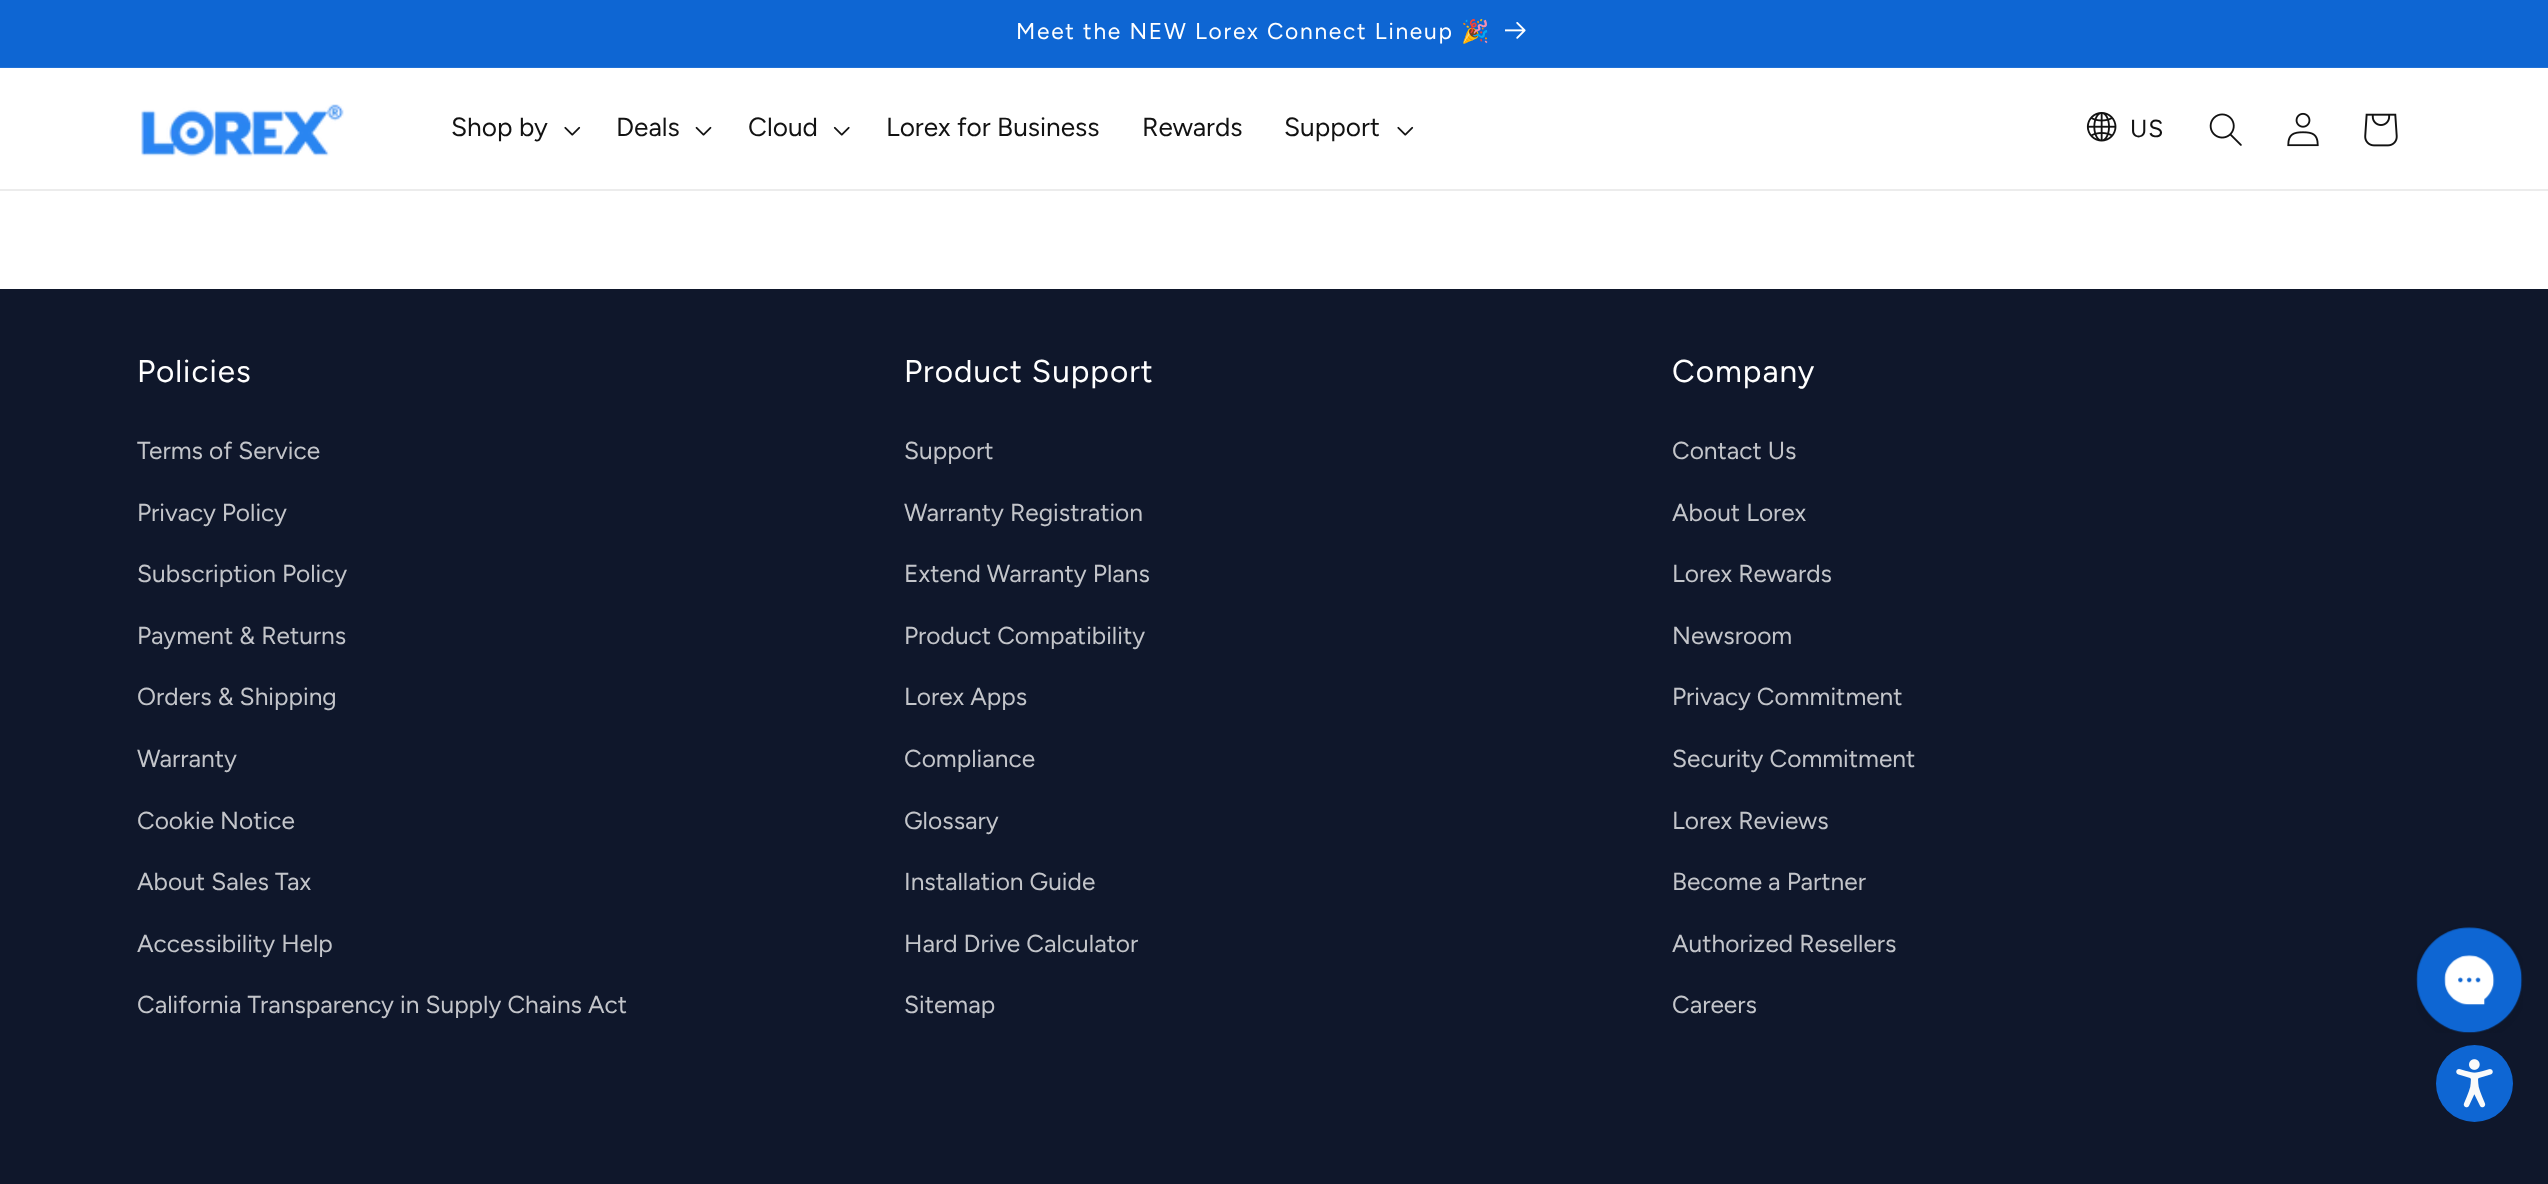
<svg xmlns="http://www.w3.org/2000/svg" width="2548" height="1184" viewBox="0 0 2548 1184">
  <style>
    .t1 { font: 22.75px Figtree; letter-spacing: 1.75px; fill: #fff; }
    .t2 { font: 22.75px Noto Color Emoji; letter-spacing: 1.75px; fill: #fff; }
    .t3 { font: 26.25px Figtree; fill: #121212; }
    .t4 { font: 24.5px Figtree; letter-spacing: 1px; fill: #121212; }
    .t5 { font: 31.5px Figtree; letter-spacing: 1px; fill: #fff; }
    .t6 { font: 24.5px Figtree; fill: #c3c5ca; }
  </style>
  <rect width="100%" height="100%" fill="#fff"/>
  <rect x="0" y="0" width="2548" height="67" fill="#0e66d3"/>
  <rect x="0" y="67" width="2548" height="1" fill="#2172d7"/>
  <text x="1016" y="39" class="t1">Meet the NEW Lorex Connect Lineup</text>
  <text x="1461" y="39" class="t2">🎉</text>
  <image x="1505" y="22" width="21" height="17" href="images/1.png"/>
  <rect x="0" y="189" width="2548" height="2" fill="#ececec"/>
  <image x="141" y="104" width="203" height="53" href="images/2.png"/>
  <text x="451" y="136" class="t3">Shop by</text>
  <image x="564" y="126" width="17" height="10" href="images/3.png"/>
  <text x="616" y="136" class="t3">Deals</text>
  <image x="695" y="126" width="17" height="10" href="images/4.png"/>
  <text x="748" y="136" class="t3">Cloud</text>
  <image x="833" y="126" width="17" height="10" href="images/5.png"/>
  <text x="886" y="136" class="t3">Lorex for Business</text>
  <text x="1142" y="136" class="t3">Rewards</text>
  <text x="1284" y="136" class="t3">Support</text>
  <image x="1397" y="126" width="17" height="10" href="images/3.png"/>
  <image x="2086" y="112" width="31" height="30" href="images/6.png"/>
  <text x="2130" y="137" class="t4">US</text>
  <image x="2209" y="113" width="33" height="33" href="images/7.png"/>
  <image x="2287" y="112" width="32" height="35" href="images/8.png"/>
  <image x="2364" y="113" width="34" height="34" href="images/9.png"/>
  <rect x="0" y="289" width="2548" height="895" fill="#0f172b"/>
  <text x="137" y="382" class="t5">Policies</text>
  <text x="137" y="459" class="t6">Terms of Service</text>
  <text x="137" y="521" class="t6">Privacy Policy</text>
  <text x="137" y="582" class="t6">Subscription Policy</text>
  <text x="137" y="644" class="t6">Payment &amp; Returns</text>
  <text x="137" y="705" class="t6">Orders &amp; Shipping</text>
  <text x="137" y="767" class="t6">Warranty</text>
  <text x="137" y="829" class="t6">Cookie Notice</text>
  <text x="137" y="890" class="t6">About Sales Tax</text>
  <text x="137" y="952" class="t6">Accessibility Help</text>
  <text x="137" y="1013" class="t6">California Transparency in Supply Chains Act</text>
  <text x="904" y="382" class="t5">Product Support</text>
  <text x="904" y="459" class="t6">Support</text>
  <text x="904" y="521" class="t6">Warranty Registration</text>
  <text x="904" y="582" class="t6">Extend Warranty Plans</text>
  <text x="904" y="644" class="t6">Product Compatibility</text>
  <text x="904" y="705" class="t6">Lorex Apps</text>
  <text x="904" y="767" class="t6">Compliance</text>
  <text x="904" y="829" class="t6">Glossary</text>
  <text x="904" y="890" class="t6">Installation Guide</text>
  <text x="904" y="952" class="t6">Hard Drive Calculator</text>
  <text x="904" y="1013" class="t6">Sitemap</text>
  <text x="1672" y="382" class="t5">Company</text>
  <text x="1672" y="459" class="t6">Contact Us</text>
  <text x="1672" y="521" class="t6">About Lorex</text>
  <text x="1672" y="582" class="t6">Lorex Rewards</text>
  <text x="1672" y="644" class="t6">Newsroom</text>
  <text x="1672" y="705" class="t6">Privacy Commitment</text>
  <text x="1672" y="767" class="t6">Security Commitment</text>
  <text x="1672" y="829" class="t6">Lorex Reviews</text>
  <text x="1672" y="890" class="t6">Become a Partner</text>
  <text x="1672" y="952" class="t6">Authorized Resellers</text>
  <text x="1672" y="1013" class="t6">Careers</text>
  <image x="2416" y="927" width="107" height="106" href="images/10.png"/>
  <circle cx="2474.5" cy="1083.5" r="38.5" fill="#0e66d3"/>
  <image x="2456" y="1059" width="37" height="49" href="images/11.png"/>
</svg>
